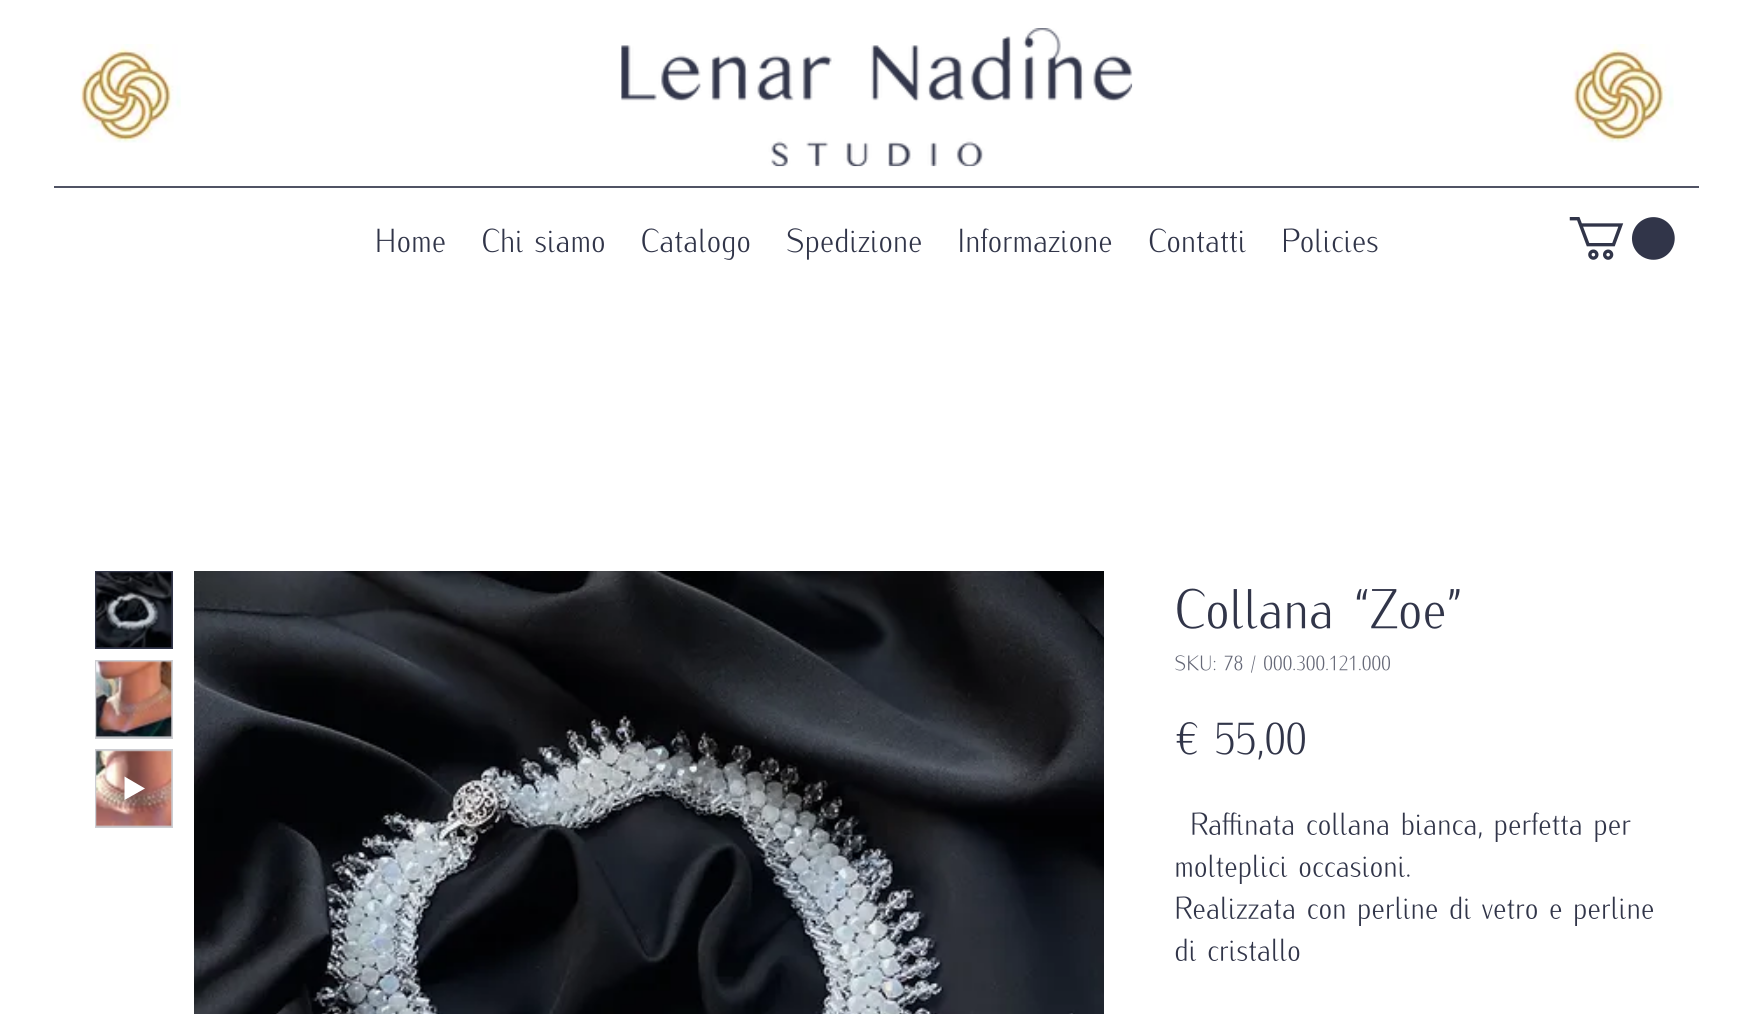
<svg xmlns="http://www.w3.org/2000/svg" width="1753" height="1014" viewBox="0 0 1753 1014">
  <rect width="100%" height="100%" fill="#fff"/>
  <image x="80" y="44" width="101" height="99" href="images/1.png"/>
  <image x="621" y="28" width="512" height="139" href="images/2.png"/>
  <image x="1573" y="44" width="101" height="99" href="images/3.png"/>
  <rect x="54" y="186" width="1645" height="2" fill="#505364"/>
  <image x="377" y="228" width="68" height="25" href="images/4.png"/>
  <image x="483" y="228" width="121" height="25" href="images/5.png"/>
  <image x="642" y="228" width="108" height="32" href="images/6.png"/>
  <image x="787" y="228" width="134" height="32" href="images/7.png"/>
  <image x="960" y="228" width="152" height="25" href="images/8.png"/>
  <image x="1149" y="228" width="97" height="25" href="images/9.png"/>
  <image x="1284" y="228" width="94" height="25" href="images/10.png"/>
  <image x="1569" y="217" width="106" height="43" href="images/11.png"/>
  <rect x="96" y="572" width="76" height="76" fill="none" stroke="#313549" stroke-width="2"/>
  <image x="96" y="572" width="76" height="76" href="images/12.png"/>
  <rect x="95" y="660" width="78" height="79" fill="#cccdd2"/>
  <image x="96" y="661" width="76" height="77" href="images/13.png"/>
  <rect x="95" y="749" width="78" height="79" fill="#cccdd2"/>
  <image x="96" y="750" width="76" height="77" href="images/14.png"/>
  <path d="M124.5 776.5V800L145 788.5Z" fill="#fff"/>
  <image x="194" y="571" width="910" height="443" href="images/15.png"/>
  <image x="1177" y="588" width="283" height="41" href="images/16.png"/>
  <image x="1175" y="655" width="215" height="18" href="images/17.png"/>
  <image x="1176" y="722" width="129" height="38" href="images/18.png"/>
  <image x="1192" y="812" width="439" height="30" href="images/19.png"/>
  <image x="1176" y="854" width="234" height="30" href="images/20.png"/>
  <image x="1176" y="896" width="478" height="30" href="images/21.png"/>
  <image x="1175" y="938" width="125" height="23" href="images/22.png"/>
</svg>
